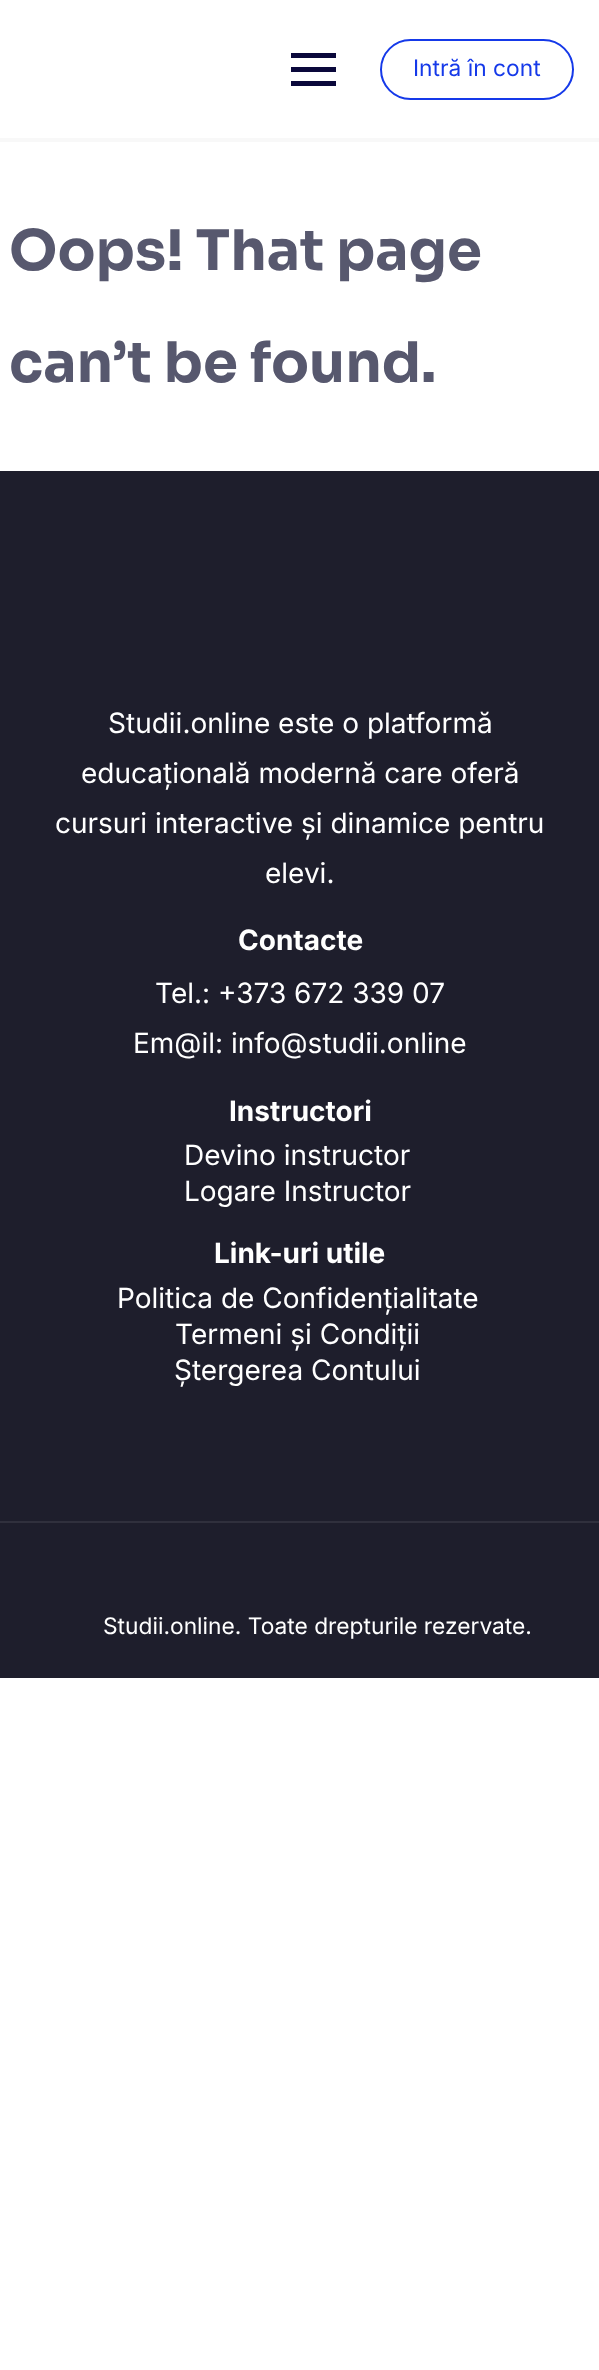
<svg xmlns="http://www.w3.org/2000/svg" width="599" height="2370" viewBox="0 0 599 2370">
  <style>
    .t1 { font: 22.75px Inter; fill: #1539e9; }
    .t2 { font: bold 56px Sora; fill: #57586e; }
    .t3 { font: 28px Inter; fill: #fff; }
    .t4 { font: bold 28px Inter; fill: #fff; }
    .t5 { font: 22.75px Inter; fill: #fff; }
  </style>
  <rect width="100%" height="100%" fill="#fff"/>
  <rect x="0" y="138" width="599" height="4" fill="#f8f8f8"/>
  <rect x="291" y="67" width="45" height="5" fill="#0a083b"/>
  <rect x="291" y="53" width="45" height="5" fill="#0a083b"/>
  <rect x="291" y="81" width="45" height="5" fill="#0a083b"/>
  <rect x="381" y="40" width="192" height="59" rx="29.5" fill="none" stroke="#1539e9" stroke-width="2"/>
  <text x="413" y="76" class="t1">Intră în cont</text>
  <text x="9" y="270" class="t2">Oops! That page</text>
  <text x="9" y="382" class="t2">can’t be found.</text>
  <rect x="0" y="471" width="599" height="1207" fill="#1e1e2c"/>
  <rect x="0" y="1521" width="599" height="2" fill="#30303d"/>
  <text x="108" y="733" class="t3">Studii.online este o platformă</text>
  <text x="81" y="783" class="t3">educațională modernă care oferă</text>
  <text x="55" y="833" class="t3">cursuri interactive și dinamice pentru</text>
  <text x="265" y="883" class="t3">elevi.</text>
  <text x="238" y="950" class="t4">Contacte</text>
  <text x="155" y="1003" class="t3">Tel.: +373 672 339 07</text>
  <text x="133" y="1053" class="t3">Em@il: info@studii.online</text>
  <text x="229" y="1121" class="t4">Instructori</text>
  <text x="184" y="1165" class="t3">Devino instructor</text>
  <text x="184" y="1201" class="t3">Logare Instructor</text>
  <text x="214" y="1263" class="t4">Link-uri utile</text>
  <text x="117" y="1308" class="t3">Politica de Confidențialitate</text>
  <text x="175" y="1344" class="t3">Termeni și Condiții</text>
  <text x="174" y="1380" class="t3">Ștergerea Contului</text>
  <text x="103" y="1634" class="t5">Studii.online. Toate drepturile rezervate.</text>
</svg>
